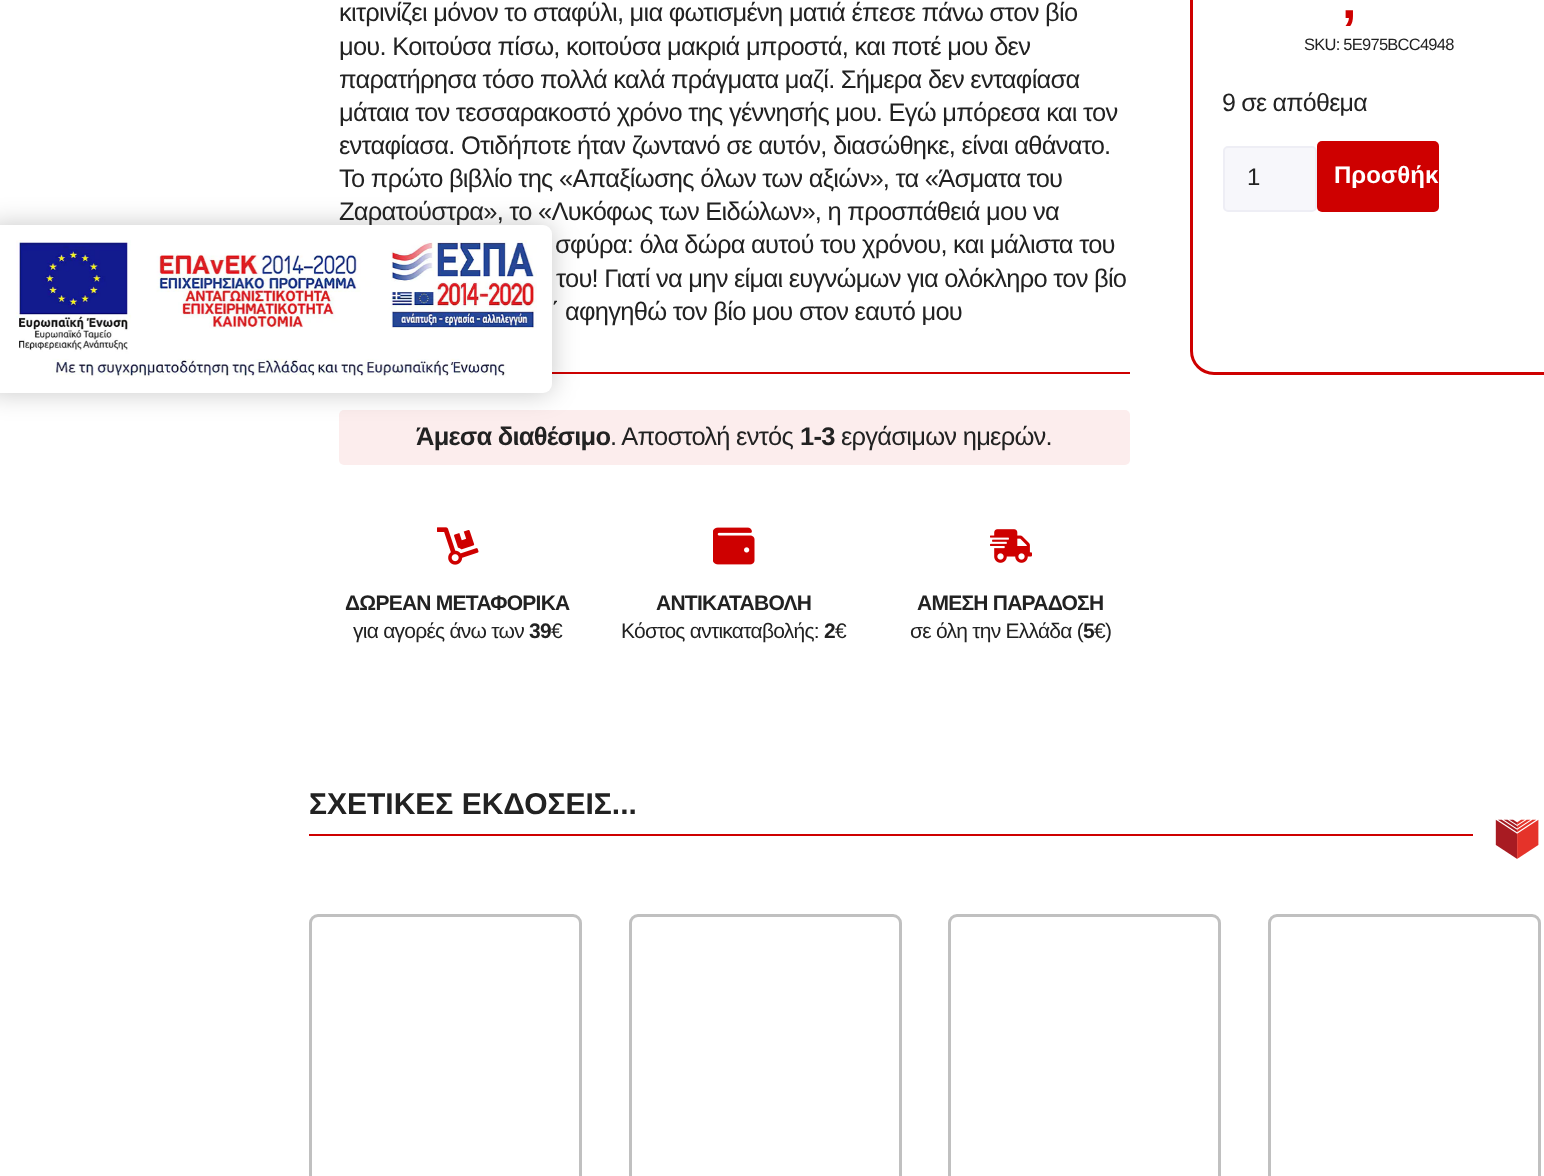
<svg xmlns="http://www.w3.org/2000/svg" width="1544" height="1176" viewBox="0 0 1544 1176">
  <style>
    .t1 { font: 25.5px Liberation Sans; letter-spacing: -0.75px; fill: #222; }
    .t2 { font: bold 25.5px Liberation Sans; letter-spacing: -0.75px; fill: #222; }
    .t3 { font: bold 21px Liberation Sans; letter-spacing: -0.75px; fill: #222; }
    .t4 { font: 21px Liberation Sans; letter-spacing: -0.75px; fill: #222; }
    .t5 { font: bold 52px Liberation Sans; letter-spacing: -0.75px; fill: #ce0000; }
    .t6 { font: 16.5px Liberation Sans; letter-spacing: -0.75px; fill: #222; }
    .t7 { font: 25px Liberation Sans; letter-spacing: -0.75px; fill: #222; }
    .t8 { font: 24px Liberation Sans; fill: #222; }
    .t9 { font: bold 24px Liberation Sans; fill: #fff; }
    .t10 { font: bold 30px Liberation Sans; fill: #222; }
  </style>
  <rect width="100%" height="100%" fill="#fff"/>
  <rect x="552" y="372" width="578" height="2" fill="#ce0000"/>
  <rect x="339" y="410" width="791" height="55" rx="5" fill="#fceded"/>
  <rect x="-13" y="225" width="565" height="168" rx="9" fill="#00000038" filter="blur(13.5px)"/>
  <text x="339" y="220" class="t1">Ζαρατούστρα», το «Λυκόφως των Ειδώλων», η προσπάθειά μου να</text>
  <rect x="-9" y="225" width="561" height="168" rx="9" fill="#fff"/>
  <image x="16" y="240" width="521" height="138" href="images/1.png"/>
  <text x="339" y="21" class="t1">κιτρινίζει μόνον το σταφύλι, μια φωτισμένη ματιά έπεσε πάνω στον βίο</text>
  <text x="339" y="55" class="t1">μου. Κοιτούσα πίσω, κοιτούσα μακριά μπροστά, και ποτέ μου δεν</text>
  <text x="339" y="88" class="t1">παρατήρησα τόσο πολλά καλά πράγματα μαζί. Σήμερα δεν ενταφίασα</text>
  <text x="339" y="121" class="t1">μάταια τον τεσσαρακοστό χρόνο της γέννησής μου. Εγώ μπόρεσα και τον</text>
  <text x="339" y="154" class="t1">ενταφίασα. Οτιδήποτε ήταν ζωντανό σε αυτόν, διασώθηκε, είναι αθάνατο.</text>
  <text x="339" y="187" class="t1">Το πρώτο βιβλίο της «Απαξίωσης όλων των αξιών», τα «Άσματα του</text>
  <text x="555" y="253" class="t1">σφύρα: όλα δώρα αυτού του χρόνου, και μάλιστα του</text>
  <text x="556" y="287" class="t1">του! Γιατί να μην είμαι ευγνώμων για ολόκληρο τον βίο</text>
  <text x="551" y="320" class="t1">΄ αφηγηθώ τον βίο μου στον εαυτό μου</text>
  <text x="416" y="445" class="t2">Άμεσα διαθέσιμο</text>
  <text x="610" y="445" class="t1">. Αποστολή εντός</text>
  <text x="800" y="445" class="t2">1-3</text>
  <text x="841" y="445" class="t1">εργάσιμων ημερών.</text>
  <image x="437" y="527" width="42" height="38" href="images/2.png"/>
  <text x="345" y="610" class="t3">ΔΩΡΕΑΝ ΜΕΤΑΦΟΡΙΚΑ</text>
  <text x="353" y="638" class="t4">για αγορές άνω των</text>
  <text x="529" y="638" class="t3">39</text>
  <text x="551" y="638" class="t4">€</text>
  <image x="713" y="527" width="42" height="38" href="images/3.png"/>
  <text x="656" y="610" class="t3">ΑΝΤΙΚΑΤΑΒΟΛΗ</text>
  <text x="621" y="638" class="t4">Κόστος αντικαταβολής:</text>
  <text x="824" y="638" class="t3">2</text>
  <text x="835" y="638" class="t4">€</text>
  <image x="990" y="529" width="42" height="34" href="images/4.png"/>
  <text x="917" y="610" class="t3">ΑΜΕΣΗ ΠΑΡΑΔΟΣΗ</text>
  <text x="910" y="638" class="t4">σε όλη την Ελλάδα (</text>
  <text x="1083" y="638" class="t3">5</text>
  <text x="1094" y="638" class="t4">€)</text>
  <rect x="1191.5" y="-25.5" width="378" height="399" rx="22.5" fill="none" stroke="#ce0000" stroke-width="3"/>
  <text x="1342" y="18" class="t5">,</text>
  <text x="1304" y="50" class="t6">SKU: 5E975BCC4948</text>
  <text x="1222" y="111" class="t7">9 σε απόθεμα</text>
  <rect x="1224" y="147" width="92" height="64" rx="4" fill="#f7f7fb" stroke="#eeeef5" stroke-width="2"/>
  <text x="1247" y="185" class="t8">1</text>
  <rect x="1317" y="141" width="122" height="71" rx="5" fill="#ce0000"/>
  <text x="1334" y="183" class="t9">Προσθήκ</text>
  <text x="309" y="814" class="t10">ΣΧΕΤΙΚΕΣ ΕΚΔΟΣΕΙΣ...</text>
  <rect x="309" y="834" width="1164" height="2" fill="#ce0000"/>
  <image x="1495" y="819" width="44" height="40" href="images/5.png"/>
  <rect x="310.5" y="915.5" width="270" height="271" rx="7.5" fill="none" stroke="#c0c0c0" stroke-width="3"/>
  <rect x="630.5" y="915.5" width="270" height="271" rx="7.5" fill="none" stroke="#c0c0c0" stroke-width="3"/>
  <rect x="949.5" y="915.5" width="270" height="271" rx="7.5" fill="none" stroke="#c0c0c0" stroke-width="3"/>
  <rect x="1269.5" y="915.5" width="270" height="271" rx="7.5" fill="none" stroke="#c0c0c0" stroke-width="3"/>
</svg>
